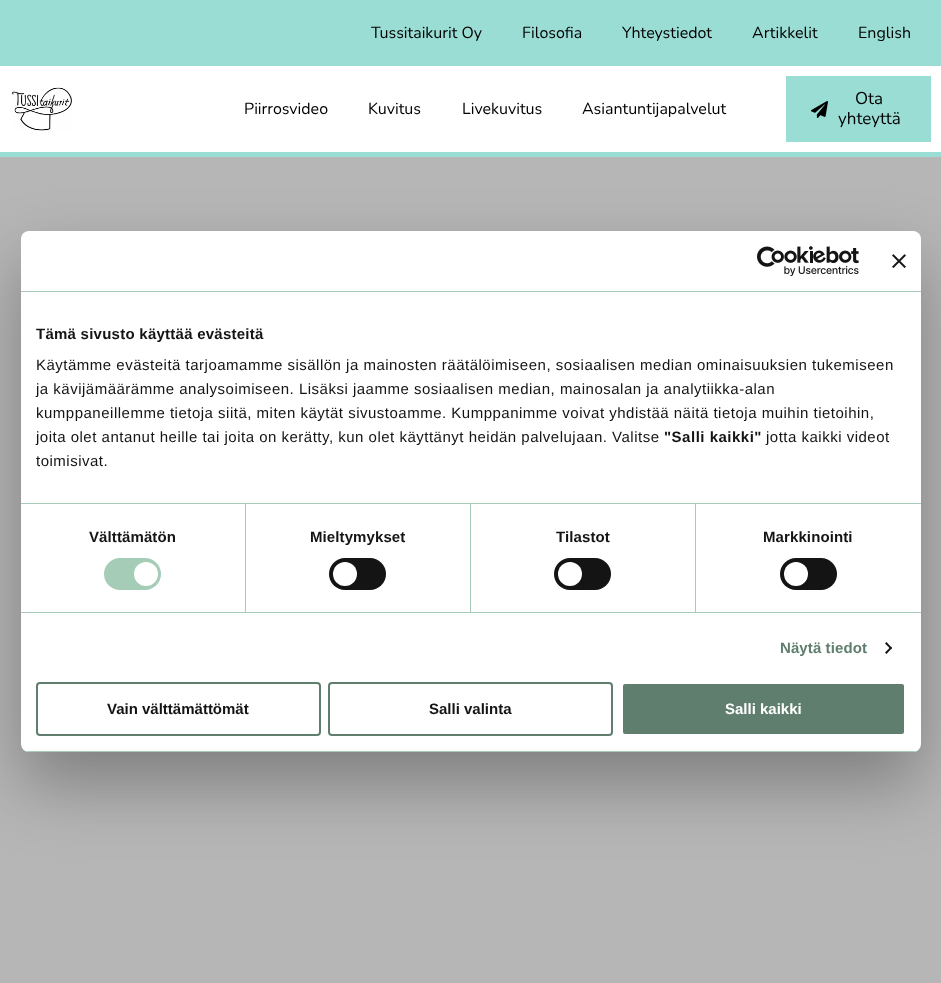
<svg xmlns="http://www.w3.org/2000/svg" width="941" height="983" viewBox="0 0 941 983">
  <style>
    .t1 { font: 16px Nunito; fill: #000; }
    .t2 { font: 17px Nunito; fill: #000; }
    .t3 { font: bold 15px Liberation Sans; letter-spacing: 0.25px; fill: #141414; }
    .t4 { font: 15px Liberation Sans; letter-spacing: 0.5px; fill: #141414; }
    .t5 { font: bold 15px Liberation Sans; letter-spacing: 0.5px; fill: #141414; }
    .t6 { font: bold 15px Liberation Sans; letter-spacing: 0.1px; fill: #141414; }
    .t7 { font: bold 15px Liberation Sans; letter-spacing: 0.1px; fill: #5f7e6e; }
    .t8 { font: bold 15px Liberation Sans; fill: #141414; }
    .t9 { font: bold 15px Liberation Sans; fill: #fff; }
  </style>
  <defs>
    <clipPath id="clip1"><rect x="21" y="231" width="900" height="521" rx="8"/></clipPath>
  </defs>
  <rect width="100%" height="100%" fill="#fff"/>
  <rect x="0" y="0" width="941" height="66" fill="#9addd4"/>
  <text x="371" y="38" class="t1">Tussitaikurit Oy</text>
  <text x="522" y="38" class="t1">Filosofia</text>
  <text x="622" y="38" class="t1">Yhteystiedot</text>
  <text x="752" y="38" class="t1">Artikkelit</text>
  <text x="858" y="38" class="t1">English</text>
  <rect x="0" y="152" width="941" height="5" fill="#9addd4"/>
  <image x="12" y="87" width="60" height="44" href="images/1.png"/>
  <text x="244" y="114" class="t1">Piirrosvideo</text>
  <text x="368" y="114" class="t1">Kuvitus</text>
  <text x="462" y="114" class="t1">Livekuvitus</text>
  <text x="582" y="114" class="t1">Asiantuntijapalvelut</text>
  <rect x="786" y="76" width="145" height="66" fill="#9addd4"/>
  <image x="811" y="101" width="17" height="17" href="images/2.png"/>
  <text x="855" y="104" class="t2">Ota</text>
  <text x="838" y="124" class="t2">yhteyttä</text>
  <rect x="0" y="157" width="941" height="826" fill="#b6b6b6"/>
  <rect x="21" y="263" width="900" height="521" rx="8" fill="#0000004d" filter="blur(34px)"/>
  <rect x="21" y="231" width="900" height="521" rx="8" fill="#fff"/>
  <rect x="21" y="291" width="900" height="1" fill="#a4ccb7"/>
  <image x="757" y="246" width="102" height="30" href="images/3.png"/>
  <image x="892" y="254" width="14" height="14" href="images/4.png"/>
  <rect x="21" y="503" width="900" height="1" fill="#a4ccb7"/>
  <text x="36" y="339" class="t3">Tämä sivusto käyttää evästeitä</text>
  <text x="36" y="370" class="t4">Käytämme evästeitä tarjoamamme sisällön ja mainosten räätälöimiseen, sosiaalisen median ominaisuuksien tukemiseen</text>
  <text x="36" y="394" class="t4">ja kävijämäärämme analysoimiseen. Lisäksi jaamme sosiaalisen median, mainosalan ja analytiikka-alan</text>
  <text x="36" y="418" class="t4">kumppaneillemme tietoja siitä, miten käytät sivustoamme. Kumppanimme voivat yhdistää näitä tietoja muihin tietoihin,</text>
  <text x="36" y="442" class="t4">joita olet antanut heille tai joita on kerätty, kun olet käyttänyt heidän palvelujaan. Valitse</text>
  <text x="664" y="442" class="t5">"Salli kaikki"</text>
  <text x="766" y="442" class="t4">jotta kaikki videot</text>
  <text x="36" y="466" class="t4">toimisivat.</text>
  <rect x="21" y="612" width="900" height="1" fill="#a4ccb7"/>
  <rect x="245" y="504" width="1" height="108" fill="#a4ccb7"/>
  <text x="89" y="542" class="t6">Välttämätön</text>
  <rect x="104" y="558" width="57" height="32" rx="16" fill="#a4ccb7"/>
  <circle cx="146" cy="574" r="12" fill="#fff"/>
  <rect x="470" y="504" width="1" height="108" fill="#a4ccb7"/>
  <text x="310" y="542" class="t6">Mieltymykset</text>
  <rect x="329" y="558" width="57" height="32" rx="16" fill="#141414"/>
  <circle cx="345" cy="574" r="12" fill="#fff"/>
  <rect x="695" y="504" width="1" height="108" fill="#a4ccb7"/>
  <text x="556" y="542" class="t6">Tilastot</text>
  <rect x="554" y="558" width="57" height="32" rx="16" fill="#141414"/>
  <circle cx="570" cy="574" r="12" fill="#fff"/>
  <text x="763" y="542" class="t6">Markkinointi</text>
  <rect x="780" y="558" width="57" height="32" rx="16" fill="#141414"/>
  <circle cx="796" cy="574" r="12" fill="#fff"/>
  <text x="780" y="653" class="t7">Näytä tiedot</text>
  <path d="M886.5 642L892 648L891 649.5L885 643.5Z" fill="#141414"/>
  <path d="M891 646.5L892 648L886.5 654L885 652.5Z" fill="#141414"/>
  <g clip-path="url(#clip1)">
    <rect x="21" y="751" width="900" height="1" fill="#a4ccb7"/>
  </g>
  <rect x="37" y="683" width="283" height="52" rx="3" fill="none" stroke="#5f7e6e" stroke-width="2"/>
  <text x="107" y="714" class="t8">Vain välttämättömät</text>
  <rect x="329" y="683" width="283" height="52" rx="3" fill="none" stroke="#5f7e6e" stroke-width="2"/>
  <text x="429" y="714" class="t8">Salli valinta</text>
  <rect x="622" y="683" width="283" height="52" rx="3" fill="#5f7e6e" stroke="#fff" stroke-width="2"/>
  <text x="725" y="714" class="t9">Salli kaikki</text>
</svg>
